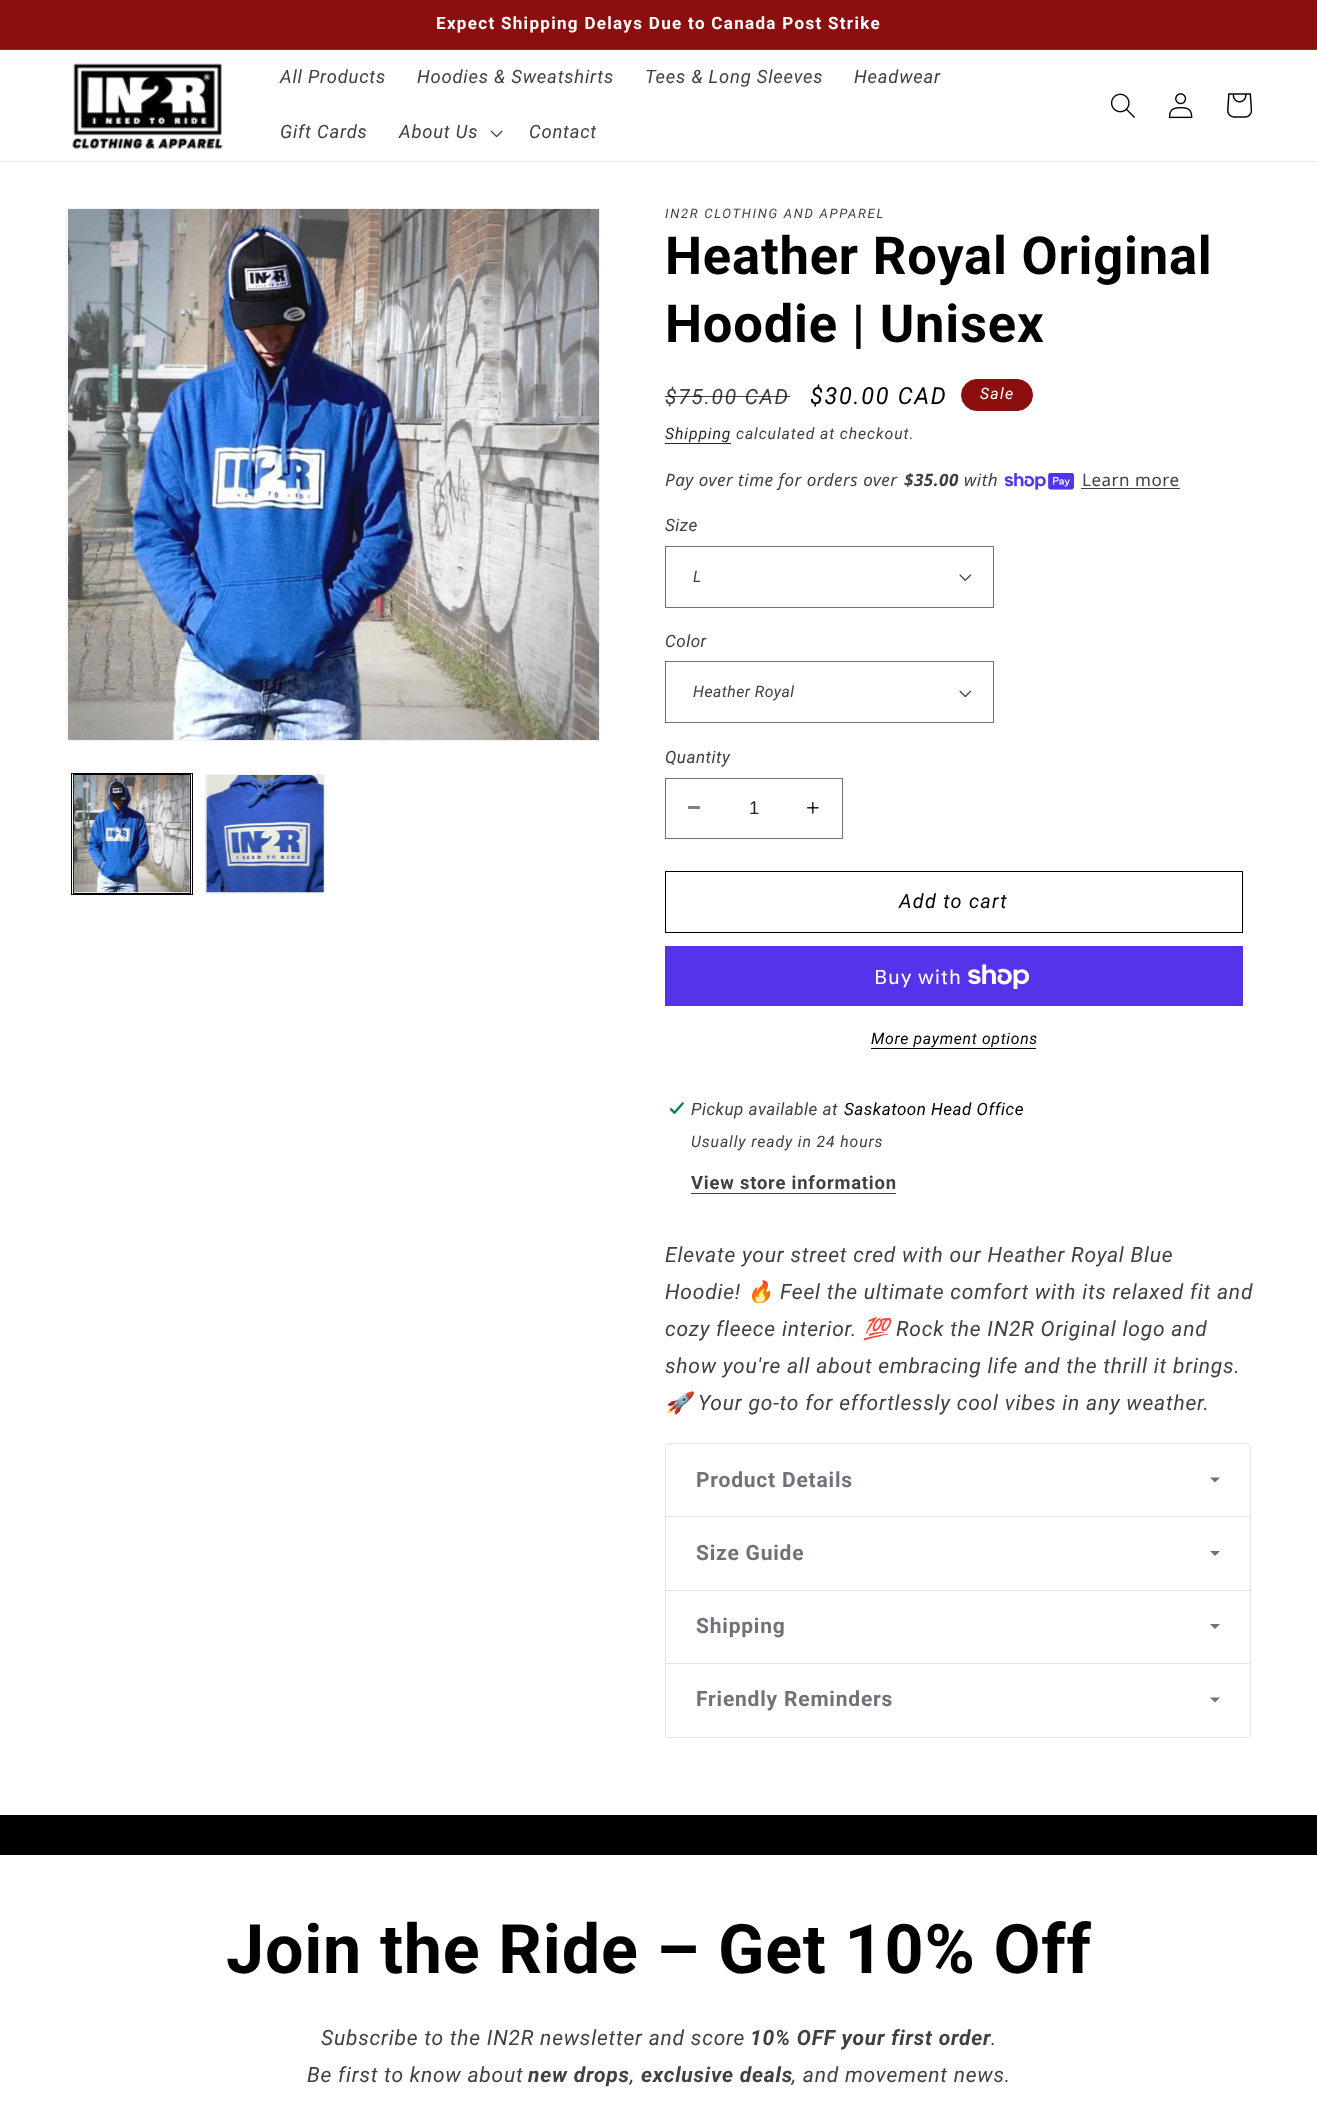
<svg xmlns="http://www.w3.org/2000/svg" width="1317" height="2105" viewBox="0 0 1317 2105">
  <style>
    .t1 { font: bold 17.05px Roboto; letter-spacing: 1.3px; fill: #fff; }
    .t2 { font: italic 18.4px Roboto; letter-spacing: 0.8px; fill: #404040; }
    .t3 { font: italic 13.1px Roboto; letter-spacing: 1.7px; fill: #404040; }
    .t4 { font: bold 52.5px Roboto; letter-spacing: 0.8px; fill: #000; }
    .t5 { font: italic 21px Roboto; letter-spacing: 1.7px; fill: #404040; }
    .t6 { font: italic 23.5px Roboto; letter-spacing: 1.7px; fill: #000; }
    .t7 { font: italic 15.75px Roboto; letter-spacing: 1.3px; fill: #fff; }
    .t8 { font: italic 15.75px Roboto; letter-spacing: 0.9px; fill: #262626; }
    .t9 { font: italic 15.75px Roboto; letter-spacing: 0.9px; fill: #404040; }
    .t10 { font: italic 17.05px Noto Sans; letter-spacing: 0.5px; fill: #404040; }
    .t11 { font: italic bold 17.05px Noto Sans; letter-spacing: 0.5px; fill: #404040; }
    .t12 { font: 17.05px Noto Sans; letter-spacing: 0.5px; fill: #404040; }
    .t13 { font: italic 17.05px Roboto; letter-spacing: 0.5px; fill: #404040; }
    .t14 { font: italic 15.75px Roboto; letter-spacing: 0.5px; fill: #404040; }
    .t15 { font: 18.4px Liberation Sans; fill: #262626; }
    .t16 { font: italic 19.75px Roboto; letter-spacing: 1.3px; fill: #000; }
    .t17 { font: 20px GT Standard; letter-spacing: 0.8px; fill: #fff; }
    .t18 { font: italic 15.75px Roboto; letter-spacing: 0.7px; fill: #000; }
    .t19 { font: italic 17.05px Roboto; letter-spacing: 0.5px; fill: #000; }
    .t20 { font: bold 18.4px Roboto; letter-spacing: 0.8px; fill: #404040; }
    .t21 { font: italic 21px Roboto; letter-spacing: 0.8px; fill: #404040; }
    .t22 { font: italic 21px Noto Color Emoji; letter-spacing: 0.8px; fill: #404040; }
    .t23 { font: bold 21px Roboto; letter-spacing: 0.8px; fill: #71717a; }
    .t24 { font: bold 68.25px Roboto; letter-spacing: 0.8px; fill: #000; }
    .t25 { font: italic bold 21px Roboto; letter-spacing: 0.8px; fill: #404040; }
  </style>
  <rect width="100%" height="100%" fill="#fff"/>
  <rect x="0" y="0" width="1317" height="49" fill="#8c0f0f"/>
  <rect x="0" y="49" width="1317" height="1" fill="#952222"/>
  <text x="436" y="29" class="t1">Expect Shipping Delays Due to Canada Post Strike</text>
  <rect x="0" y="161" width="1317" height="1" fill="#ebebeb"/>
  <image x="72" y="63" width="151" height="86" href="images/1.png"/>
  <text x="280" y="83" class="t2">All Products</text>
  <text x="417" y="83" class="t2">Hoodies &amp; Sweatshirts</text>
  <text x="645" y="83" class="t2">Tees &amp; Long Sleeves</text>
  <text x="854" y="83" class="t2">Headwear</text>
  <text x="280" y="138" class="t2">Gift Cards</text>
  <text x="399" y="138" class="t2">About Us</text>
  <image x="490" y="130" width="13" height="8" href="images/2.png"/>
  <text x="529" y="138" class="t2">Contact</text>
  <image x="1110" y="93" width="25" height="25" href="images/3.png"/>
  <image x="1168" y="93" width="25" height="26" href="images/4.png"/>
  <image x="1227" y="93" width="26" height="25" href="images/5.png"/>
  <rect x="66.5" y="208.5" width="533" height="532" fill="none" stroke="#f2f2f2"/>
  <image x="68" y="209" width="531" height="531" href="images/6.png"/>
  <rect x="71.5" y="773.5" width="121" height="121" fill="none" stroke="#000"/>
  <rect x="73.5" y="774.5" width="117" height="119" fill="none" stroke="#000"/>
  <image x="73" y="775" width="118" height="118" href="images/7.png"/>
  <rect x="205.5" y="774.5" width="119" height="119" fill="none" stroke="#f2f2f2"/>
  <image x="205" y="775" width="119" height="118" href="images/8.png"/>
  <text x="665" y="218" class="t3">IN2R CLOTHING AND APPAREL</text>
  <text x="665" y="274" class="t4">Heather Royal Original</text>
  <text x="665" y="342" class="t4">Hoodie | Unisex</text>
  <text x="665" y="404" class="t5">$75.00 CAD</text>
  <rect x="665" y="396" width="125" height="1" fill="#000000bf"/>
  <text x="810" y="404" class="t6">$30.00 CAD</text>
  <rect x="961.5" y="379.5" width="71" height="31" rx="15.5" fill="#8c0f0f" stroke="#8c0f0f"/>
  <text x="980" y="399" class="t7">Sale</text>
  <text x="665" y="439" class="t8">Shipping</text>
  <rect x="665" y="443" width="66" height="1" fill="#262626"/>
  <text x="736" y="439" class="t9">calculated at checkout.</text>
  <text x="665" y="486" class="t10">Pay over time for orders over</text>
  <text x="904" y="486" class="t11">$35.00</text>
  <text x="964" y="486" class="t10">with</text>
  <image x="1004" y="473" width="70" height="17" href="images/9.png"/>
  <text x="1082" y="486" class="t12">Learn more</text>
  <rect x="1081" y="488" width="99" height="1" fill="#404040"/>
  <text x="665" y="531" class="t13">Size</text>
  <image x="959" y="574" width="13" height="7" href="images/10.png"/>
  <rect x="665.5" y="546.5" width="328" height="61" fill="none" stroke="#737373"/>
  <text x="693" y="582" class="t14">L</text>
  <text x="665" y="647" class="t13">Color</text>
  <image x="959" y="690" width="13" height="8" href="images/11.png"/>
  <rect x="665.5" y="661.5" width="328" height="61" fill="none" stroke="#737373"/>
  <text x="693" y="697" class="t14">Heather Royal</text>
  <text x="665" y="763" class="t13">Quantity</text>
  <rect x="688" y="806" width="12" height="3" fill="#808080"/>
  <image x="807" y="801" width="12" height="13" href="images/12.png"/>
  <rect x="665.5" y="778.5" width="177" height="60" fill="none" stroke="#737373"/>
  <text x="749" y="814" class="t15">1</text>
  <rect x="665.5" y="871.5" width="577" height="61" fill="none" stroke="#000"/>
  <text x="899" y="908" class="t16">Add to cart</text>
  <rect x="665" y="946" width="578" height="60" fill="#5433eb"/>
  <text x="874" y="984" class="t17">Buy with</text>
  <image x="968" y="964" width="62" height="25" href="images/13.png"/>
  <text x="871" y="1044" class="t18">More payment options</text>
  <rect x="871" y="1048" width="165" height="1" fill="#000"/>
  <image x="669" y="1101" width="16" height="14" href="images/14.png"/>
  <text x="691" y="1115" class="t13">Pickup available at</text>
  <text x="844" y="1115" class="t19">Saskatoon Head Office</text>
  <text x="691" y="1147" class="t9">Usually ready in 24 hours</text>
  <text x="691" y="1189" class="t20">View store information</text>
  <rect x="691" y="1193" width="205" height="1" fill="#404040"/>
  <text x="665" y="1262" class="t21">Elevate your street cred with our Heather Royal Blue</text>
  <text x="665" y="1299" class="t21">Hoodie!</text>
  <text x="747" y="1299" class="t22">🔥</text>
  <text x="780" y="1299" class="t21">Feel the ultimate comfort with its relaxed fit and</text>
  <text x="665" y="1336" class="t21">cozy fleece interior.</text>
  <text x="863" y="1336" class="t22">💯</text>
  <text x="896" y="1336" class="t21">Rock the IN2R Original logo and</text>
  <text x="665" y="1373" class="t21">show you're all about embracing life and the thrill it brings.</text>
  <text x="665" y="1410" class="t22">🚀</text>
  <text x="698" y="1410" class="t21">Your go-to for effortlessly cool vibes in any weather.</text>
  <rect x="665.5" y="1443.5" width="585" height="294" rx="3.5" fill="none" stroke="#e4e4e7"/>
  <text x="696" y="1487" class="t23">Product Details</text>
  <path d="M1210 1477.5H1220L1215 1482.5Z" fill="#71717a"/>
  <rect x="666" y="1516" width="584" height="1" fill="#e4e4e7"/>
  <text x="696" y="1560" class="t23">Size Guide</text>
  <path d="M1210 1551H1220L1215 1556Z" fill="#71717a"/>
  <rect x="666" y="1590" width="584" height="1" fill="#e4e4e7"/>
  <text x="696" y="1633" class="t23">Shipping</text>
  <path d="M1210 1624H1220L1215 1629Z" fill="#71717a"/>
  <rect x="666" y="1663" width="584" height="1" fill="#e4e4e7"/>
  <text x="696" y="1706" class="t23">Friendly Reminders</text>
  <path d="M1210 1697.5H1220L1215 1702.5Z" fill="#71717a"/>
  <rect x="0" y="1815" width="1317" height="40" fill="#000"/>
  <text x="226" y="1973" class="t24">Join the Ride – Get 10% Off</text>
  <text x="321" y="2045" class="t21">Subscribe to the IN2R newsletter and score</text>
  <text x="750" y="2045" class="t25">10% OFF your first order</text>
  <text x="991" y="2045" class="t21">.</text>
  <text x="307" y="2082" class="t21">Be first to know about</text>
  <text x="528" y="2082" class="t25">new drops</text>
  <text x="630" y="2082" class="t21">,</text>
  <text x="641" y="2082" class="t25">exclusive deals</text>
  <text x="792" y="2082" class="t21">, and movement news.</text>
</svg>
